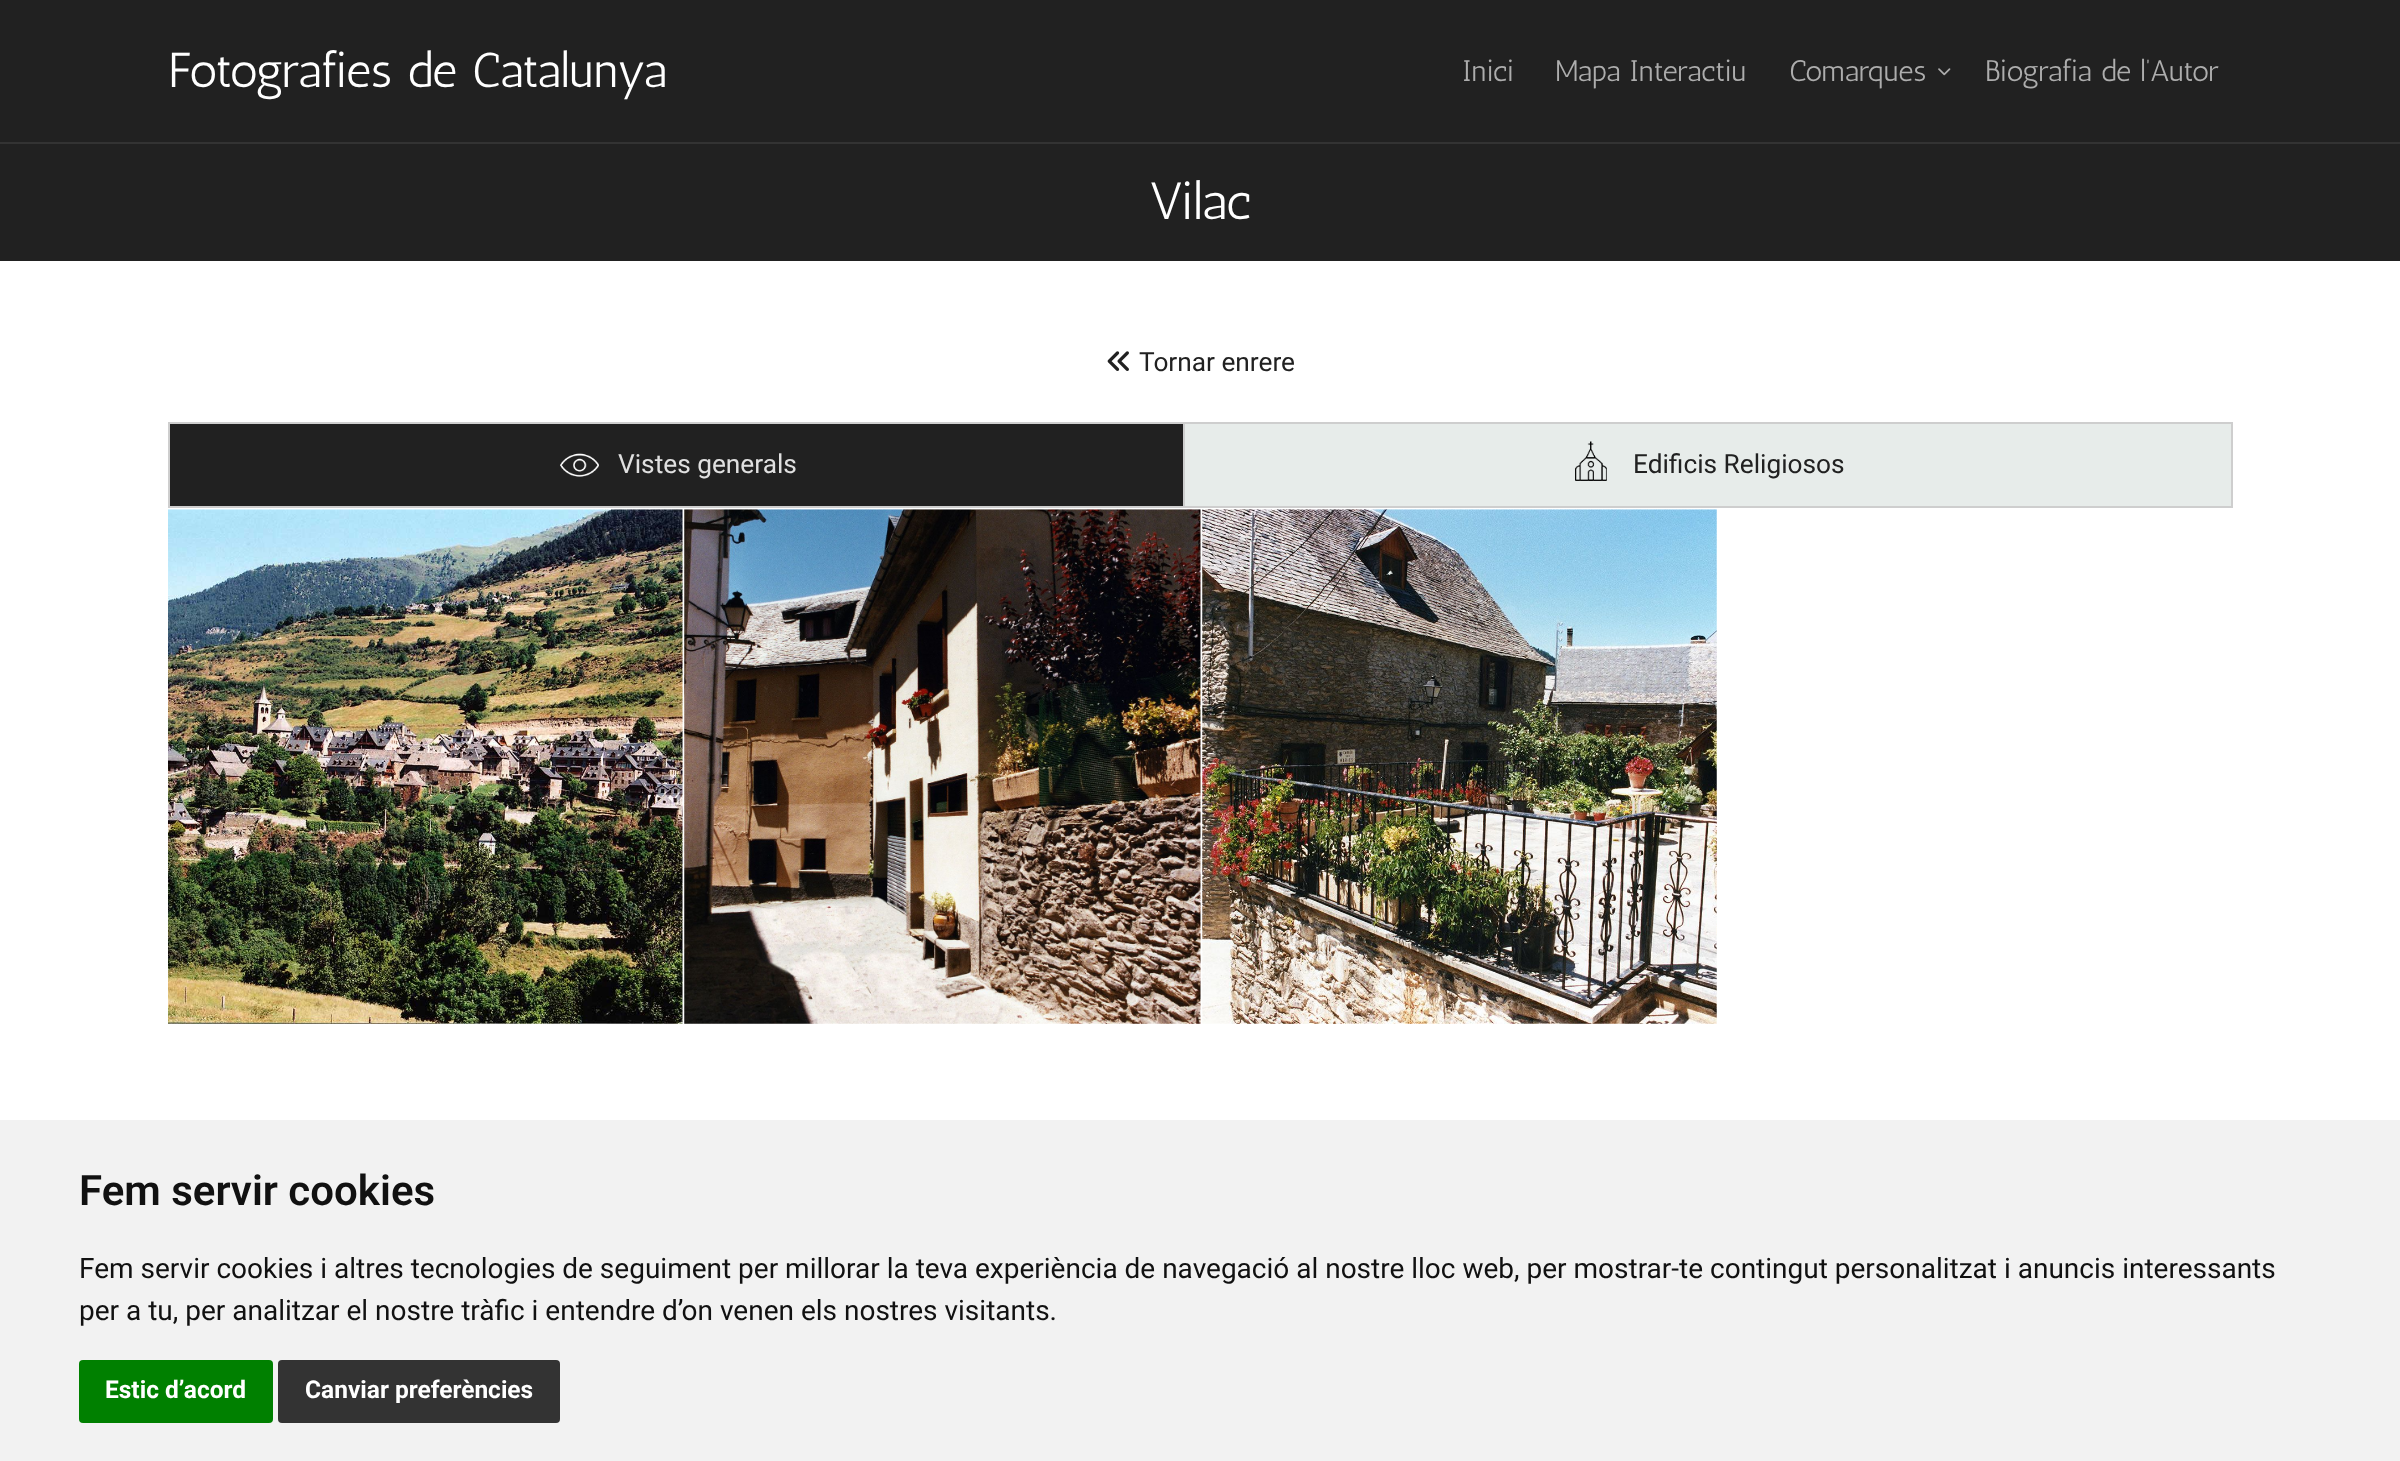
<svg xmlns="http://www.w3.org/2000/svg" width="2400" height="1461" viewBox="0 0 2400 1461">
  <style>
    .t1 { font: 49px Antic; fill: #fff; }
    .t2 { font: 29.75px Antic; fill: #adadad; }
    .t3 { font: 52px Antic; fill: #fff; }
    .t4 { font: 26.25px Roboto; fill: #212121; }
    .t5 { font: 26.25px Roboto; fill: #e0e0e0; }
    .t6 { font: 600 42px Roboto; fill: #111; }
    .t7 { font: 28px Roboto; fill: #111; }
    .t8 { font: bold 24.5px Roboto; fill: #fff; }
  </style>
  <rect width="100%" height="100%" fill="#fff"/>
  <rect x="0" y="0" width="2400" height="142" fill="#212121"/>
  <rect x="0" y="142" width="2400" height="2" fill="#333"/>
  <text x="168" y="87" class="t1">Fotografies de Catalunya</text>
  <text x="1462" y="81" class="t2">Inici</text>
  <text x="1555" y="81" class="t2">Mapa Interactiu</text>
  <text x="1789" y="81" class="t2">Comarques</text>
  <image x="1938" y="68" width="13" height="8" href="images/1.png"/>
  <text x="1985" y="81" class="t2">Biografia de l’Autor</text>
  <rect x="0" y="144" width="2400" height="117" fill="#212121"/>
  <text x="1149" y="219" class="t3">Vilac</text>
  <image x="1107" y="351" width="22" height="20" href="images/2.png"/>
  <text x="1139" y="371" class="t4">Tornar enrere</text>
  <rect x="169" y="423" width="1015" height="84" fill="none" stroke="#cecece" stroke-width="2"/>
  <rect x="170" y="424" width="1013" height="82" fill="#212121"/>
  <image x="560" y="453" width="39" height="24" href="images/3.png"/>
  <text x="618" y="473" class="t5">Vistes generals</text>
  <rect x="1185" y="424" width="1046" height="82" fill="#e7ecea"/>
  <rect x="1185" y="422" width="1048" height="2" fill="#cecece"/>
  <rect x="2231" y="422" width="2" height="86" fill="#cecece"/>
  <rect x="1185" y="506" width="1048" height="2" fill="#cecece"/>
  <image x="1575" y="441" width="32" height="40" href="images/4.png"/>
  <text x="1633" y="473" class="t4">Edificis Religiosos</text>
  <image x="168" y="509" width="515" height="515" href="images/5.png"/>
  <image x="684" y="509" width="517" height="515" href="images/6.png"/>
  <image x="1202" y="509" width="515" height="515" href="images/7.png"/>
  <rect x="0" y="1120" width="2400" height="341" fill="#f2f2f2"/>
  <text x="79" y="1205" class="t6">Fem servir cookies</text>
  <text x="79" y="1278" class="t7">Fem servir cookies i altres tecnologies de seguiment per millorar la teva experiència de navegació al nostre lloc web, per mostrar-te contingut personalitzat i anuncis interessants</text>
  <text x="79" y="1320" class="t7">per a tu, per analitzar el nostre tràfic i entendre d’on venen els nostres visitants.</text>
  <rect x="79" y="1360" width="194" height="63" rx="4" fill="#008000"/>
  <text x="105" y="1398" class="t8">Estic d’acord</text>
  <rect x="278" y="1360" width="282" height="63" rx="4" fill="#333"/>
  <text x="305" y="1398" class="t8">Canviar preferències</text>
</svg>
